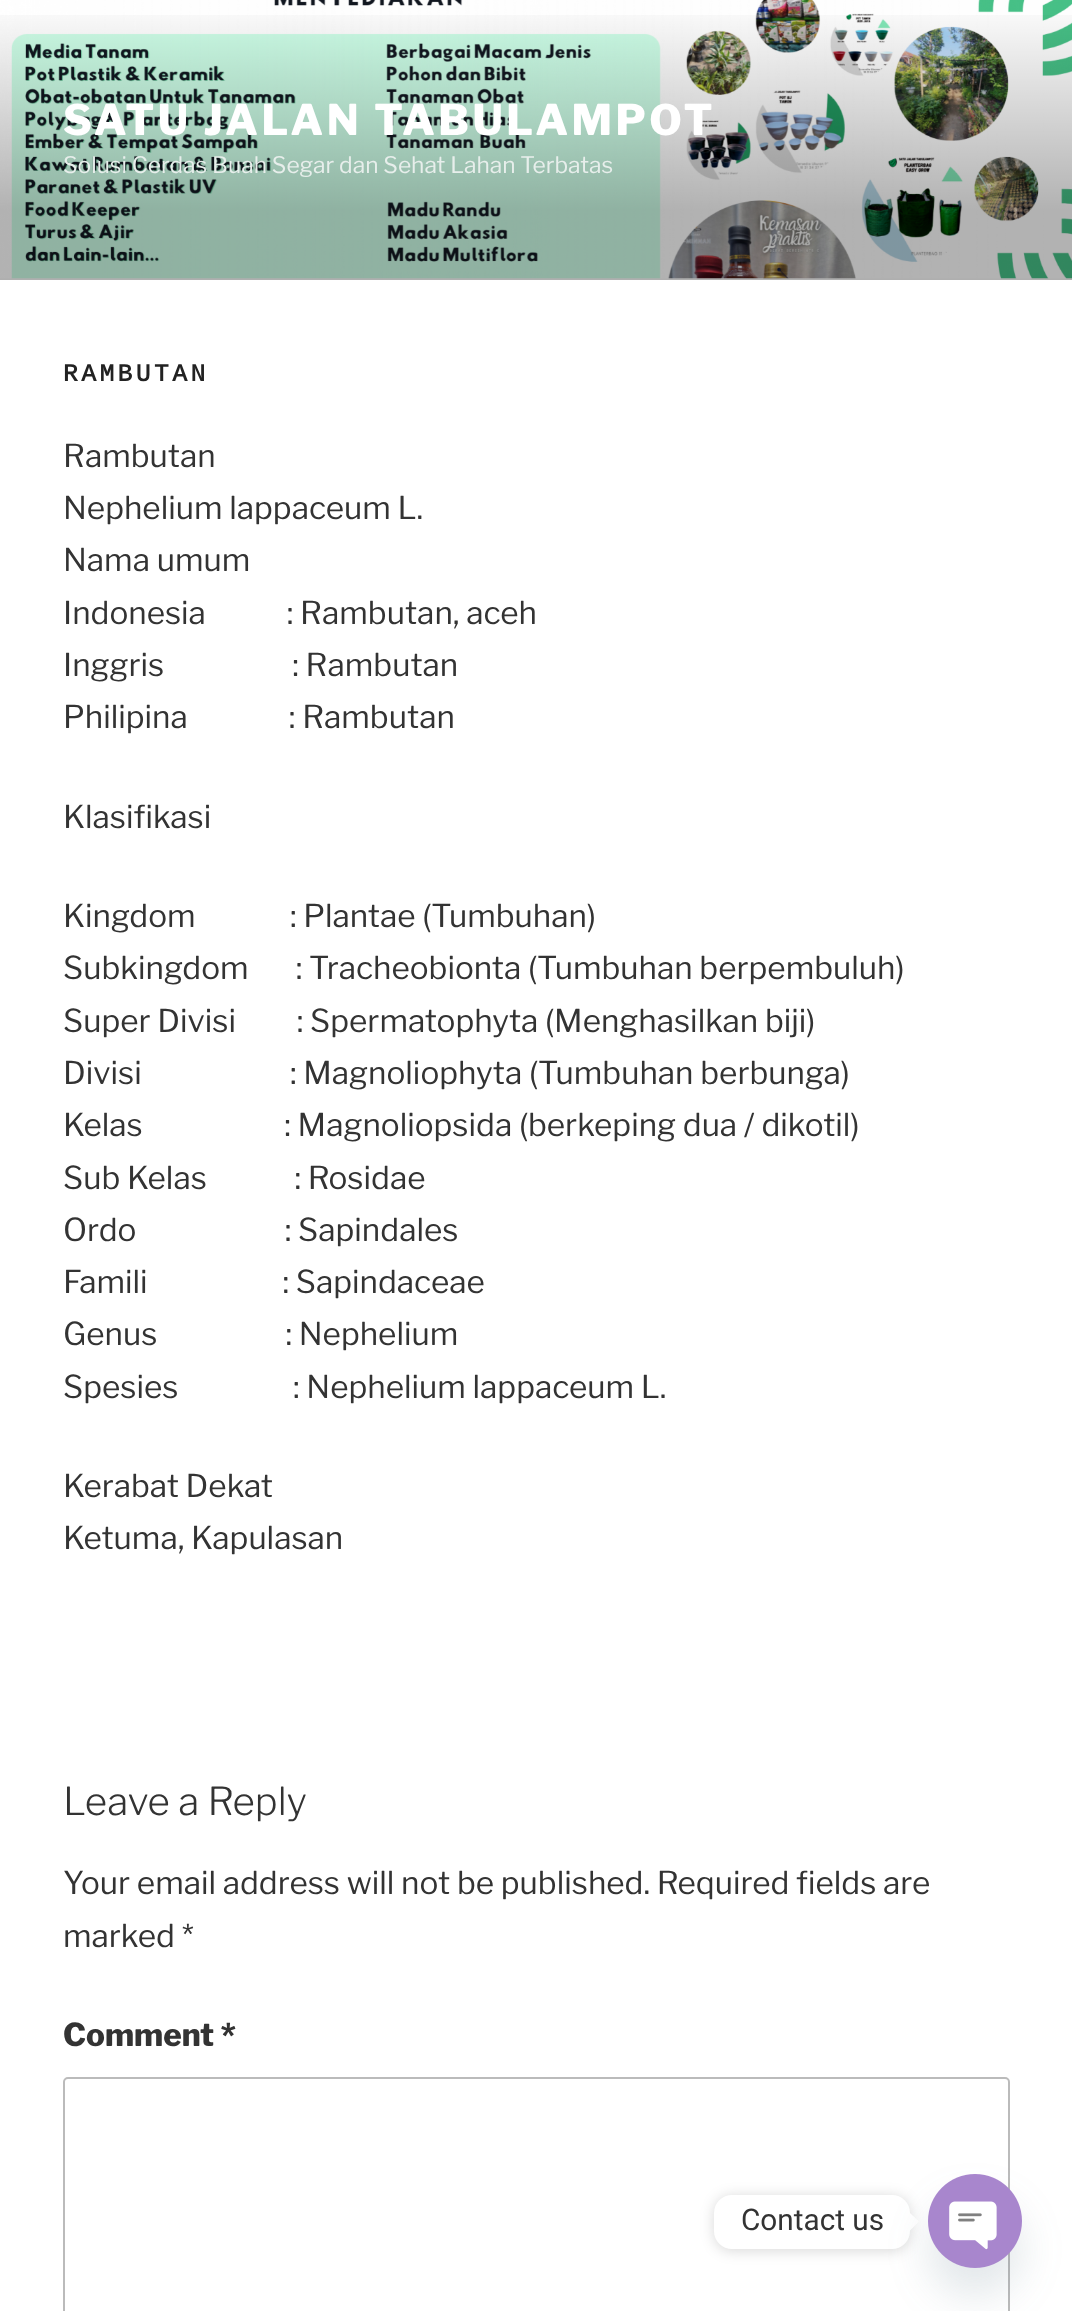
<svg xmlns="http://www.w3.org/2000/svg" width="1072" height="2311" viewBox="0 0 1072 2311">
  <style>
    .t1 { font: 800 42px Libre Franklin; letter-spacing: 3.4px; fill: #fff; }
    .t2 { font: 22.75px Libre Franklin; fill: #e7eeeb; }
    .t3 { font: bold 24.5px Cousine; letter-spacing: 3.5px; fill: #222; }
    .t4 { font: 31.5px Libre Franklin; fill: #333; }
    .t5 { font: 300 38.5px Libre Franklin; fill: #333; }
    .t6 { font: 800 31.5px Libre Franklin; fill: #333; }
    .t7 { font: 29.75px Roboto; fill: #333; }
  </style>
  <defs>
    <linearGradient id="g1" gradientUnits="userSpaceOnUse" x1="536" y1="0" x2="536" y2="280"><stop offset="0" stop-color="#000" stop-opacity="0"/><stop offset="0.75" stop-color="#000" stop-opacity="0.3"/><stop offset="1" stop-color="#000" stop-opacity="0.3"/></linearGradient>
  </defs>
  <rect width="100%" height="100%" fill="#fff"/>
  <rect x="0" y="278" width="1072" height="2" fill="#fafafa"/>
  <image x="0" y="0" width="1072" height="279" href="images/1.png"/>
  <rect x="0" y="15" width="1072" height="265" fill="url(#g1)"/>
  <text x="63" y="135" class="t1">SATU JALAN TABULAMPOT</text>
  <text x="63" y="173" class="t2">Solusi Cerdas Buah Segar dan Sehat Lahan Terbatas</text>
  <text x="63" y="381" class="t3">RAMBUTAN</text>
  <text x="63" y="467" class="t4">Rambutan</text>
  <text x="63" y="519" class="t4">Nephelium lappaceum L.</text>
  <text x="63" y="571" class="t4">Nama umum</text>
  <text x="63" y="624" class="t4" xml:space="preserve">Indonesia            : Rambutan, aceh</text>
  <text x="63" y="676" class="t4" xml:space="preserve">Inggris                   : Rambutan</text>
  <text x="63" y="728" class="t4" xml:space="preserve">Philipina               : Rambutan</text>
  <text x="63" y="828" class="t4">Klasifikasi</text>
  <text x="63" y="927" class="t4" xml:space="preserve">Kingdom              : Plantae (Tumbuhan)</text>
  <text x="63" y="979" class="t4" xml:space="preserve">Subkingdom       : Tracheobionta (Tumbuhan berpembuluh)</text>
  <text x="63" y="1032" class="t4" xml:space="preserve">Super Divisi         : Spermatophyta (Menghasilkan biji)</text>
  <text x="63" y="1084" class="t4" xml:space="preserve">Divisi                      : Magnoliophyta (Tumbuhan berbunga)</text>
  <text x="63" y="1136" class="t4" xml:space="preserve">Kelas                     : Magnoliopsida (berkeping dua / dikotil)</text>
  <text x="63" y="1189" class="t4" xml:space="preserve">Sub Kelas             : Rosidae</text>
  <text x="63" y="1241" class="t4" xml:space="preserve">Ordo                      : Sapindales</text>
  <text x="63" y="1293" class="t4" xml:space="preserve">Famili                    : Sapindaceae</text>
  <text x="63" y="1345" class="t4" xml:space="preserve">Genus                   : Nephelium</text>
  <text x="63" y="1398" class="t4" xml:space="preserve">Spesies                 : Nephelium lappaceum L.</text>
  <text x="63" y="1497" class="t4">Kerabat Dekat</text>
  <text x="63" y="1549" class="t4">Ketuma, Kapulasan</text>
  <text x="63" y="1815" class="t5">Leave a Reply</text>
  <text x="63" y="1894" class="t4">Your email address will not be published. Required fields are</text>
  <text x="63" y="1947" class="t4">marked *</text>
  <text x="63" y="2046" class="t6">Comment *</text>
  <rect x="64" y="2078" width="945" height="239" rx="4" fill="none" stroke="#bbb" stroke-width="2"/>
  <rect x="714" y="2196" width="196" height="55" rx="18" fill="#00000026" filter="blur(7px)"/>
  <rect x="714" y="2195" width="196" height="54" rx="18" fill="#fff"/>
  <text x="741" y="2230" class="t7">Contact us</text>
  <path d="M910 2230.5V2213L919 2221.5Z" fill="#fff"/>
  <rect x="928" y="2202" width="94" height="94" rx="47" fill="#49687e29" filter="blur(21px)"/>
  <image x="928" y="2174" width="94" height="94" href="images/2.png"/>
</svg>
